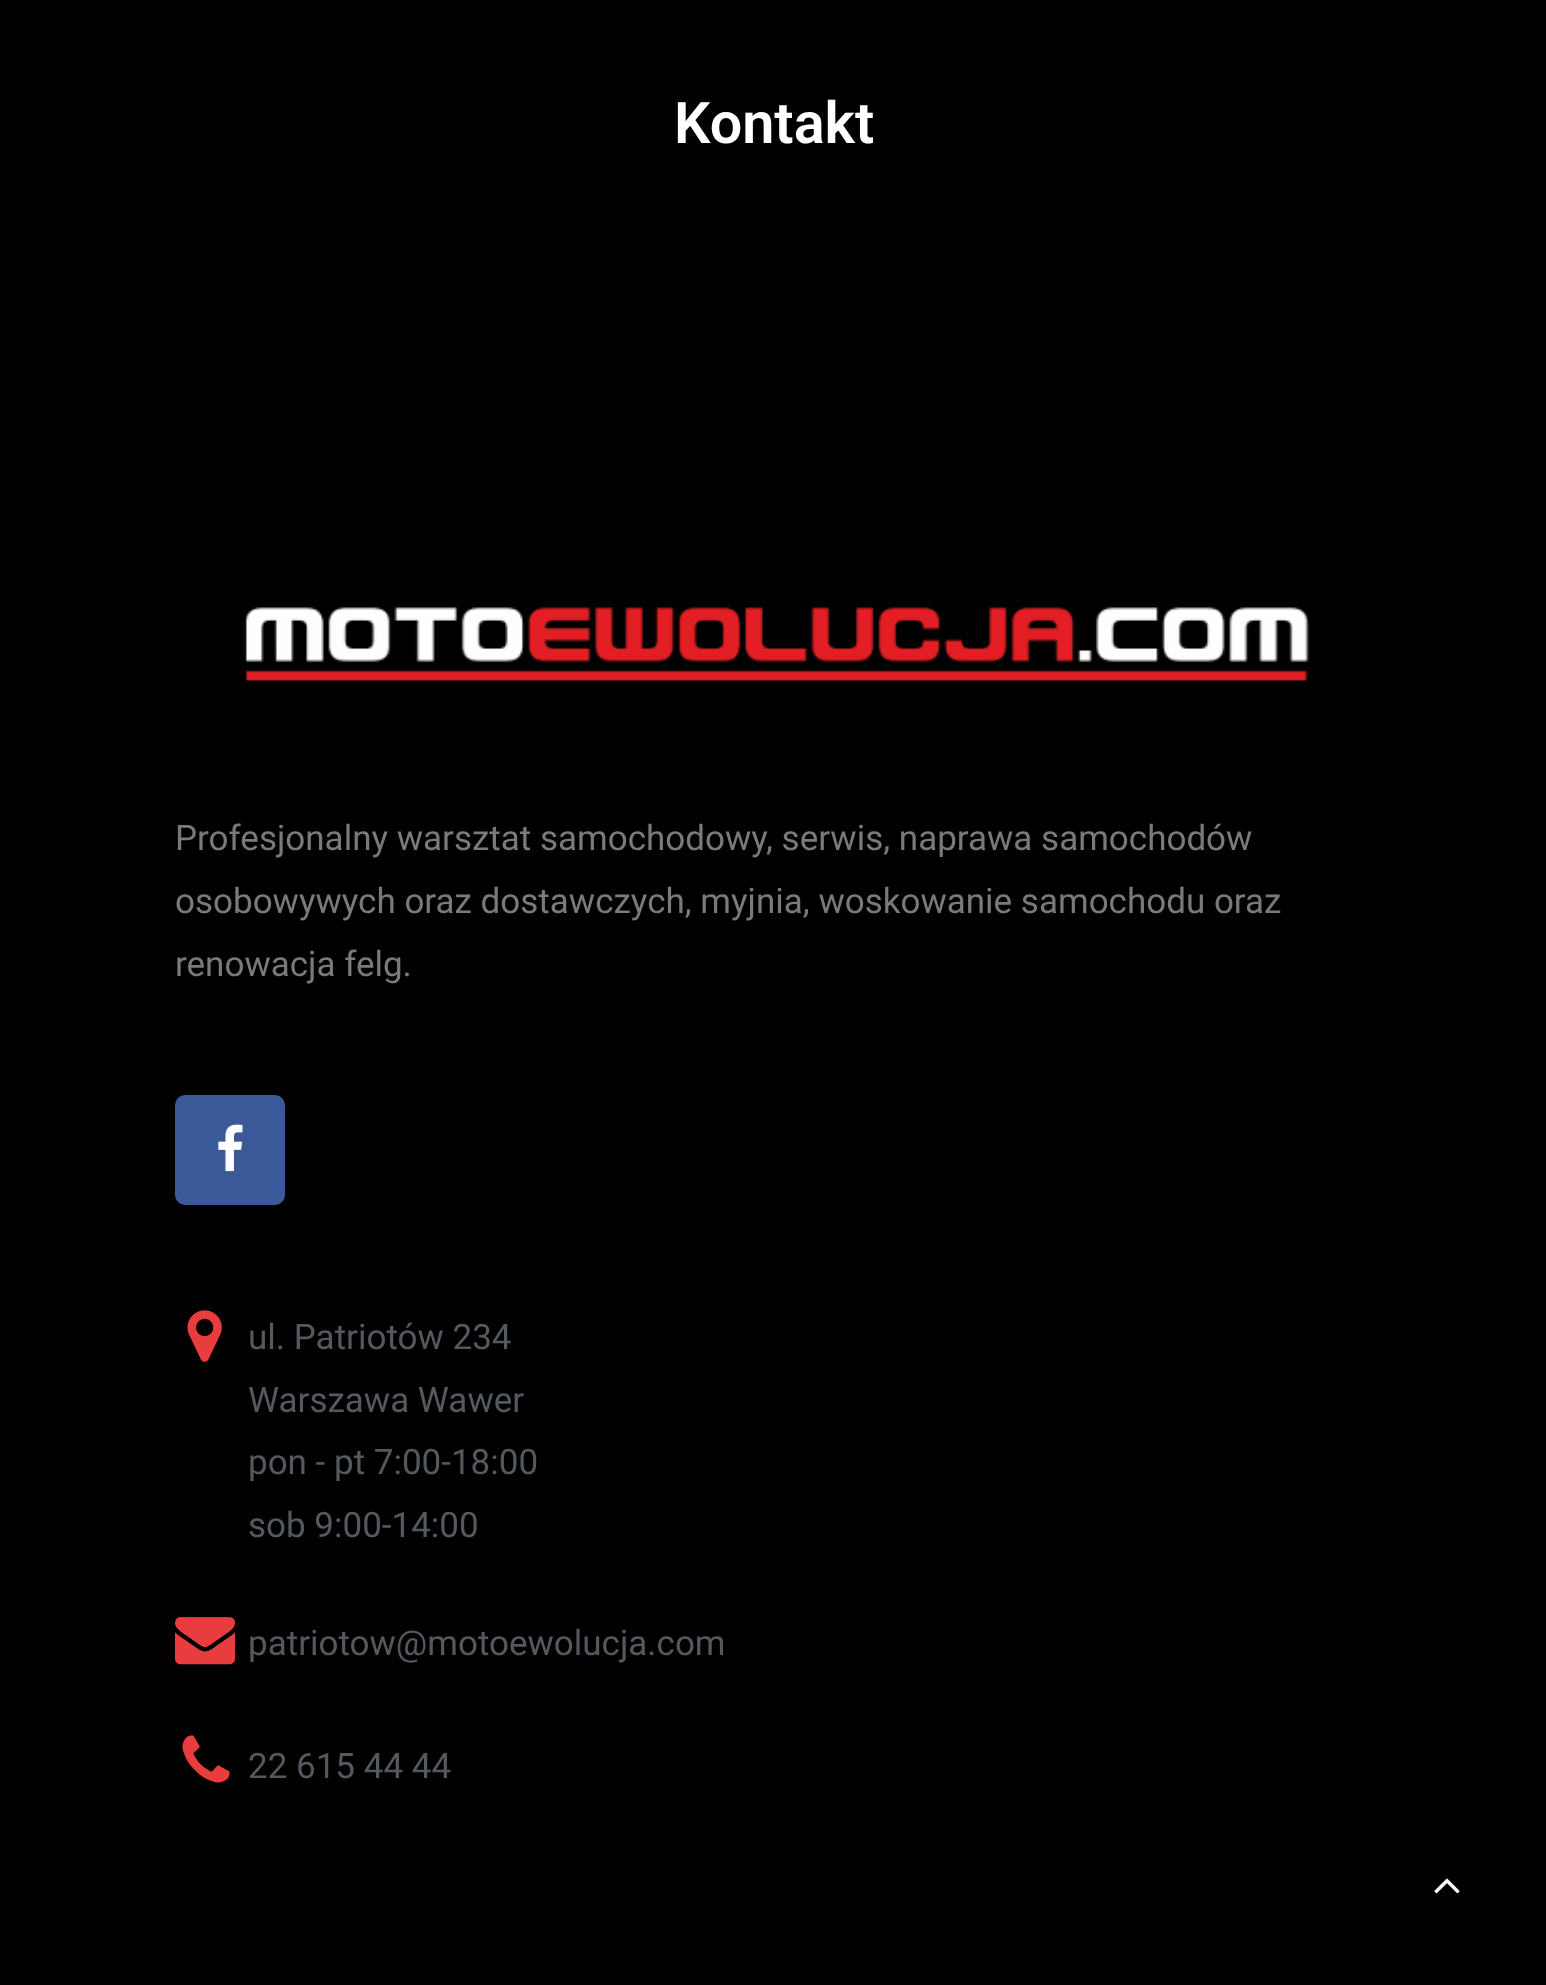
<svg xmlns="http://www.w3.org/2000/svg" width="1546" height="1985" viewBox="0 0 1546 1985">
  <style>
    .t1 { font: 600 57.5px Roboto; fill: #fff; }
    .t2 { font: 35px Roboto; fill: #7a7a7a; }
    .t3 { font: 35px Roboto; fill: #54595f; }
  </style>
  <rect width="100%" height="100%" fill="#000"/>
  <text x="674" y="143" class="t1">Kontakt</text>
  <image x="244" y="607" width="1066" height="74" href="images/1.png"/>
  <text x="175" y="850" class="t2">Profesjonalny warsztat samochodowy, serwis, naprawa samochodów</text>
  <text x="175" y="913" class="t2">osobowywych oraz dostawczych, myjnia, woskowanie samochodu oraz</text>
  <text x="175" y="976" class="t2">renowacja felg.</text>
  <rect x="175" y="1095" width="110" height="110" rx="10" fill="#3b5998"/>
  <image x="218" y="1124" width="25" height="48" href="images/2.png"/>
  <image x="187" y="1310" width="35" height="52" href="images/3.png"/>
  <text x="248" y="1349" class="t3">ul. Patriotów 234</text>
  <text x="248" y="1412" class="t3">Warszawa Wawer</text>
  <text x="248" y="1474" class="t3">pon - pt 7:00-18:00</text>
  <text x="248" y="1537" class="t3">sob 9:00-14:00</text>
  <image x="175" y="1617" width="60" height="48" href="images/4.png"/>
  <text x="248" y="1655" class="t3">patriotow@motoewolucja.com</text>
  <image x="182" y="1735" width="48" height="48" href="images/5.png"/>
  <text x="248" y="1778" class="t3">22 615 44 44</text>
  <image x="1434" y="1878" width="26" height="16" href="images/6.png"/>
</svg>
